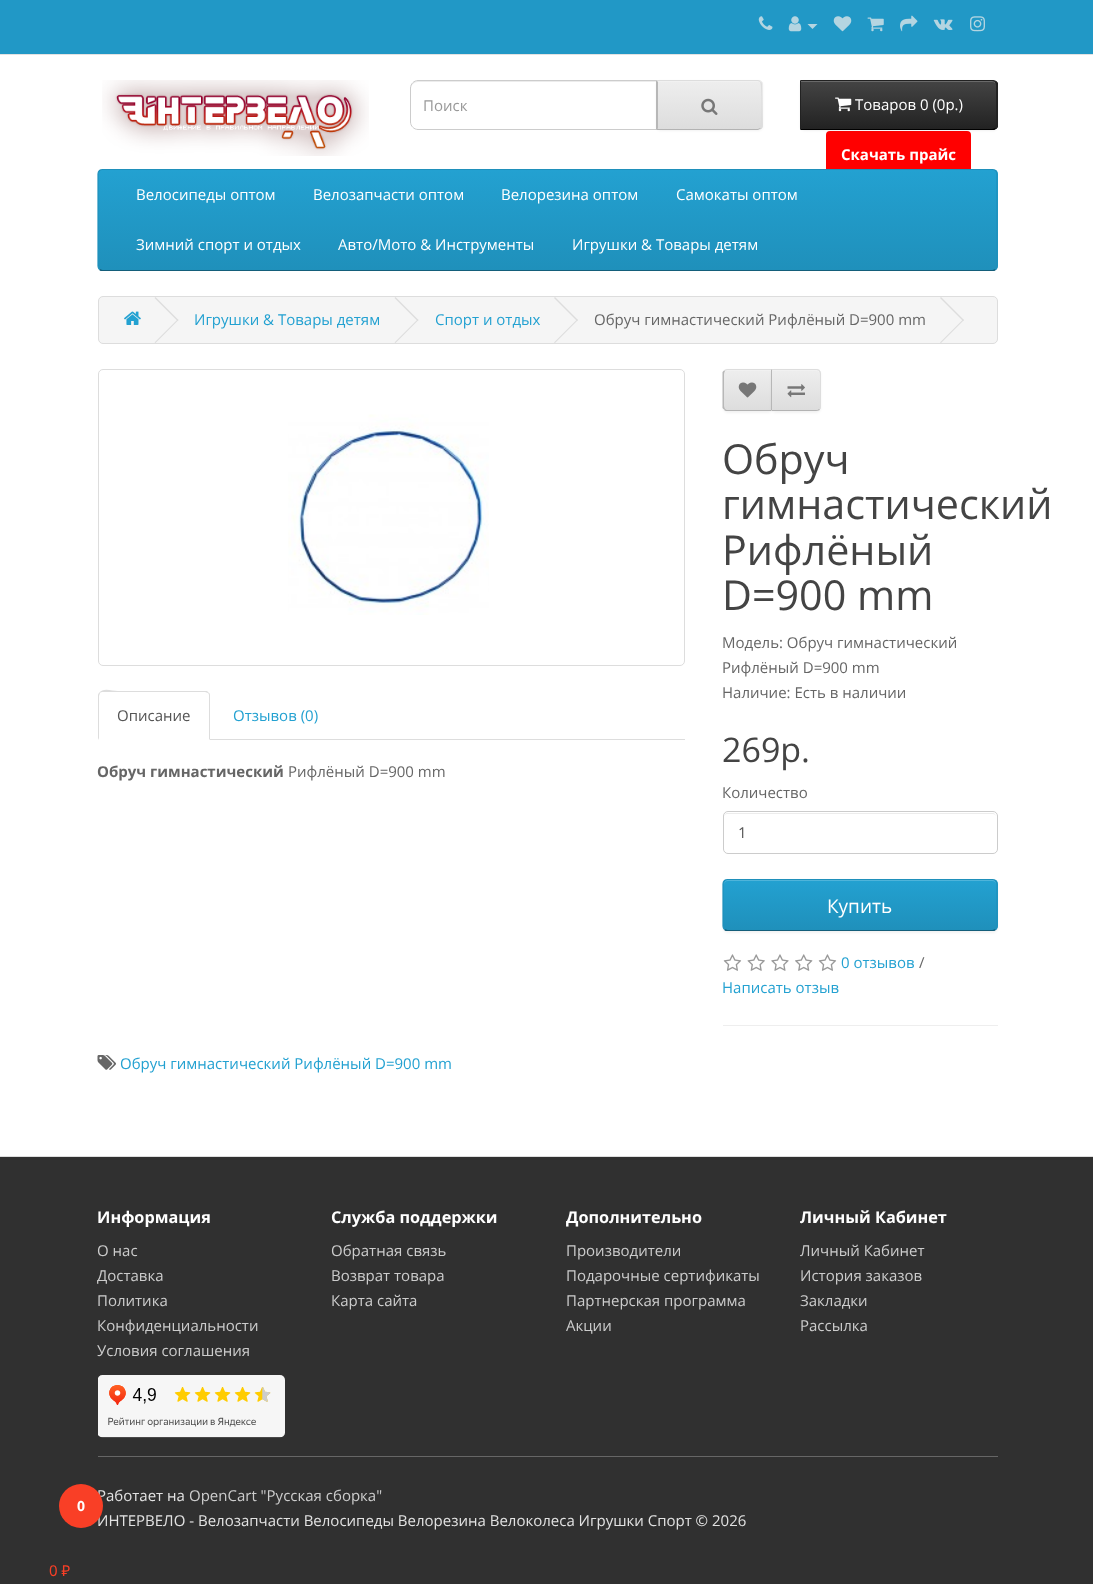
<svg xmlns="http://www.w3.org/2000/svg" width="1093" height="1596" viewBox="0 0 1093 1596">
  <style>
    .t1 { font: 15px Open Sans; fill: #fff; }
    .t2 { font: 15px Open Sans; fill: #e2e2e2; }
    .t3 { font: bold 14px Open Sans; fill: #fff; }
    .t4 { font: 15px Noto Sans; fill: #f93f26; }
    .t5 { font: bold 15px Open Sans; fill: #fff; }
    .t6 { font: 15px Open Sans; fill: #999; }
    .t7 { font: 15px Open Sans; fill: #23a1d1; }
    .t8 { font: 15px Open Sans; fill: #666; }
    .t9 { font: 15px Open Sans; fill: #555; }
    .t10 { font: bold 15px Open Sans; fill: #666; }
    .t11 { font: 41.25px Open Sans; fill: #444; }
    .t12 { font: 34px Open Sans; fill: #444; }
    .t13 { font: 19px Open Sans; fill: #fff; }
    .t14 { font: bold 16.25px Open Sans; fill: #fff; }
    .t15 { font: 15px Open Sans; fill: #ccc; }
  </style>
  <defs>
    <clipPath id="clip1"><path d="M800 80H993C996 80 998 82 998 85V125C998 128 996 130 993 130H800Z"/></clipPath>
    <linearGradient id="g1" gradientUnits="userSpaceOnUse" x1="899" y1="81" x2="899" y2="129"><stop offset="0" stop-color="#444"/><stop offset="1" stop-color="#222"/></linearGradient>
    <clipPath id="clip2"><path d="M656 80H758C761 80 763 82 763 85V125C763 128 761 130 758 130H656Z"/></clipPath>
    <linearGradient id="g2" gradientUnits="userSpaceOnUse" x1="709" y1="81" x2="709" y2="129"><stop offset="0" stop-color="#eee"/><stop offset="1" stop-color="#ddd"/></linearGradient>
    <clipPath id="clip3"><rect x="98" y="169" width="900" height="102" rx="5"/></clipPath>
    <linearGradient id="g3" gradientUnits="userSpaceOnUse" x1="548" y1="170" x2="548" y2="270"><stop offset="0" stop-color="#23a1d1"/><stop offset="1" stop-color="#1f90bb"/></linearGradient>
    <clipPath id="clip4"><path d="M728 369H773V411H728C725 411 723 409 723 406V374C723 371 725 369 728 369Z"/></clipPath>
    <linearGradient id="g4" gradientUnits="userSpaceOnUse" x1="748" y1="370" x2="748" y2="410"><stop offset="0" stop-color="#eee"/><stop offset="1" stop-color="#ddd"/></linearGradient>
    <clipPath id="clip5"><path d="M771 369H816C819 369 821 371 821 374V406C821 409 819 411 816 411H771Z"/></clipPath>
    <linearGradient id="g5" gradientUnits="userSpaceOnUse" x1="796" y1="370" x2="796" y2="410"><stop offset="0" stop-color="#eee"/><stop offset="1" stop-color="#ddd"/></linearGradient>
    <clipPath id="clip6"><rect x="723" y="879" width="275" height="52" rx="5"/></clipPath>
    <linearGradient id="g6" gradientUnits="userSpaceOnUse" x1="860" y1="880" x2="860" y2="930"><stop offset="0" stop-color="#23a1d1"/><stop offset="1" stop-color="#1f90bb"/></linearGradient>
  </defs>
  <rect width="100%" height="100%" fill="#fff"/>
  <rect x="0" y="0" width="1093" height="54" fill="#2198c6"/>
  <rect x="0" y="54" width="1093" height="1" fill="#e2e2e2"/>
  <image x="758" y="16" width="15" height="14" href="images/1.png"/>
  <image x="788" y="16" width="14" height="16" href="images/2.png"/>
  <path d="M807.5 24H817.5L812.5 29Z" fill="#b4d5e1"/>
  <image x="833" y="16" width="19" height="16" href="images/3.png"/>
  <image x="867" y="17" width="17" height="15" href="images/4.png"/>
  <image x="900" y="15" width="18" height="17" href="images/5.png"/>
  <image x="933" y="19" width="20" height="11" href="images/6.png"/>
  <image x="970" y="16" width="15" height="16" href="images/7.png"/>
  <image x="102" y="80" width="267" height="76" href="images/8.png"/>
  <rect x="826" y="131" width="145" height="50" rx="4" fill="#f00"/>
  <rect x="800" y="81" width="198" height="50" rx="5" fill="#0000000d" filter="blur(1px)"/>
  <g clip-path="url(#clip1)">
    <rect x="801" y="81" width="197" height="48" fill="url(#g1)"/>
  </g>
  <path d="M801 82H992C995 82 996 84 996 86C996 83 995 81 992 81H801Z" fill="#696969"/>
  <path d="M800 80L801 81H992C994 81 995 82 995 82L996 81C995 80 994 80 992 80Z" fill="#222"/>
  <path d="M998 127L996 129L995 128L996 125V85L995 82L996 81L998 83Z" fill="#222"/>
  <path d="M992 130C994 130 995 130 996 129L995 128C995 128 994 129 992 129H801L800 130Z" fill="#000"/>
  <path d="M800 80V130L801 129V81Z" fill="#222"/>
  <image x="835" y="97" width="17" height="15" href="images/9.png"/>
  <text x="855" y="110" class="t1">Товаров 0 (0р.)</text>
  <rect x="0" y="1157" width="1093" height="427" fill="#303030"/>
  <text x="97" y="1501" class="t2">Работает на</text>
  <text x="97" y="1526" class="t2">ИНТЕРВЕЛО - Велозапчасти Велосипеды Велорезина Велоколеса Игрушки Спорт © 2026</text>
  <circle cx="81" cy="1506" r="22" fill="#f93f26"/>
  <text x="77" y="1511" class="t3">0</text>
  <text x="49" y="1576" class="t4">0 ₽</text>
  <text x="841" y="160" class="t5">Скачать прайс</text>
  <path d="M418 82H656V81H417C414 81 411 84 411 87V89C411 85 414 82 418 82Z" fill="#ececec"/>
  <path d="M418 80.5H657.5V129.5H418C414 129.5 410.5 126 410.5 122V88C410.5 84 414 80.5 418 80.5Z" fill="none" stroke="#ccc"/>
  <text x="423" y="111" class="t6">Поиск</text>
  <rect x="656" y="81" width="107" height="50" rx="5" fill="#0000000d" filter="blur(1px)"/>
  <path d="M656 80H758C761 80 763 82 763 85V125C763 128 761 130 758 130H656Z" fill="#e7e7e7"/>
  <g clip-path="url(#clip2)">
    <rect x="657" y="81" width="106" height="48" fill="url(#g2)"/>
  </g>
  <path d="M658 82H758C760 82 761 84 761 86V85C761 83 759 81 757 81H658Z" fill="#f1f1f1"/>
  <path d="M658 81H758L760 82H761L758 80H656L658 82Z" fill="#ddd"/>
  <path d="M761 82C762 82 762 84 762 85V125C762 126 762 128 761 128H760C762 126 762 84 760 82Z" fill="#ddd"/>
  <path d="M656 130H758L761 128H760L758 129H658V128Z" fill="#b3b3b3"/>
  <path d="M656 130L658 128V82L656 80Z" fill="#b7b7b7"/>
  <image x="701" y="98" width="17" height="17" href="images/10.png"/>
  <g clip-path="url(#clip3)">
    <rect x="98" y="170" width="900" height="100" fill="url(#g3)"/>
  </g>
  <path d="M995.5 269.5C995 270 993.5 270.5 992.5 270.5H102.5C101.5 270.5 100 270 99.5 269.5" fill="none" stroke="#145e7a" stroke-width="1.2"/>
  <path d="M99.5 269.5C98.5 268.5 98 267.5 98 266V174C98 172.5 98.5 171.5 99.5 170.5C100 170 101.5 169.5 102.5 169.5H992.5C993.5 169.5 995 170 995.5 170.5C996.5 171.5 997 172.5 997 174V266C997 267.5 996.5 268.5 995.5 269.5" fill="none" stroke="#1f90bb" stroke-width="1.2"/>
  <text x="136" y="200" class="t1">Велосипеды оптом</text>
  <text x="313" y="200" class="t1">Велозапчасти оптом</text>
  <text x="501" y="200" class="t1">Велорезина оптом</text>
  <text x="676" y="200" class="t1">Самокаты оптом</text>
  <text x="136" y="250" class="t1">Зимний спорт и отдых</text>
  <text x="338" y="250" class="t1">Авто/Мото &amp; Инструменты</text>
  <text x="572" y="250" class="t1">Игрушки &amp; Товары детям</text>
  <rect x="98.5" y="296.5" width="899" height="47" rx="4.5" fill="#f5f5f5" stroke="#ddd"/>
  <image x="124" y="311" width="17" height="14" href="images/11.png"/>
  <path d="M154.5 298L155.5 297L178.5 320L177.5 321Z" fill="#ddd"/>
  <path d="M154.5 342.5L177.5 319.5L178.5 320L155.5 343Z" fill="#ddd"/>
  <text x="194" y="325" class="t7">Игрушки &amp; Товары детям</text>
  <path d="M394.5 298L395.5 297L418.5 320L417.5 321Z" fill="#ddd"/>
  <path d="M394.5 342.5L417.5 319.5L418.5 320L395.5 343Z" fill="#ddd"/>
  <text x="435" y="325" class="t7">Спорт и отдых</text>
  <path d="M554 298L555 297L578 320L577 321Z" fill="#ddd"/>
  <path d="M554 342.5L577 319.5L578 320L555 343Z" fill="#ddd"/>
  <text x="594" y="325" class="t8">Обруч гимнастический Рифлёный D=900 mm</text>
  <path d="M940 298L941 297L964 320L963 321Z" fill="#ddd"/>
  <path d="M940 342.5L963 319.5L964 320L941 343Z" fill="#ddd"/>
  <rect x="98.5" y="369.5" width="586" height="296" rx="4.5" fill="none" stroke="#ddd"/>
  <image x="288" y="414" width="201" height="201" href="images/12.png"/>
  <rect x="210" y="739" width="475" height="1" fill="#ddd"/>
  <path d="M102 692C101 692 100 693 100 693H99C103 687 112 691 118 691H207L209 693H208L205 692Z" fill="#ddd"/>
  <path d="M210 740V696C210 695 210 693 209 693H208C209 694 209 695 209 696V739Z" fill="#ddd"/>
  <path d="M98 740V696C98 695 98 694 99 693H100L99 696V738Z" fill="#ddd"/>
  <text x="117" y="721" class="t9">Описание</text>
  <text x="233" y="721" class="t7">Отзывов (0)</text>
  <text x="97" y="777" class="t10">Обруч гимнастический</text>
  <text x="288" y="777" class="t8">Рифлёный D=900 mm</text>
  <rect x="723" y="370" width="50" height="43" rx="5" fill="#0000000d" filter="blur(1px)"/>
  <path d="M728 369H773V411H728C725 411 723 409 723 406V374C723 371 725 369 728 369Z" fill="#e7e7e7"/>
  <g clip-path="url(#clip4)">
    <rect x="723" y="370" width="48" height="40" fill="url(#g4)"/>
  </g>
  <path d="M728 371H771V370H728C726 370 724 372 724 374V375C724 373 725 371 728 371Z" fill="#f1f1f1"/>
  <path d="M728 369L724 370L725 371C726 370 727 370 728 370H771L772 369Z" fill="#ddd"/>
  <path d="M772 411H728C727 411 725 411 724 410L725 409C726 410 727 410 728 410H771Z" fill="#b3b3b3"/>
  <path d="M722.5 372L724 370.5L725 371C724.5 372 724 373 724 374V406C724 407 724.5 408 725 409L724 409.5L722.5 408Z" fill="#b7b7b7"/>
  <image x="738" y="382" width="19" height="16" href="images/13.png"/>
  <rect x="771" y="370" width="50" height="43" rx="5" fill="#0000000d" filter="blur(1px)"/>
  <path d="M771 369H816C819 369 821 371 821 374V406C821 409 819 411 816 411H771Z" fill="#e7e7e7"/>
  <g clip-path="url(#clip5)">
    <rect x="772" y="370" width="49" height="40" fill="url(#g5)"/>
  </g>
  <path d="M773 370V371H816C818 371 820 373 820 375C820 372 819 370 816 370Z" fill="#f1f1f1"/>
  <path d="M820 370C819 370 818 369 816 369H772V370H816C817 370 818 370 819 371Z" fill="#ddd"/>
  <path d="M819.5 370.5C820.5 371 821 372.5 821 374V406C821 407.5 820.5 409 819.5 409.5L819 409C819.5 408 820 407 820 406V374C820 373 819.5 372 819 371Z" fill="#ddd"/>
  <path d="M820 410C819 410 818 411 816 411H772V410H816C817 410 818 410 819 409Z" fill="#b3b3b3"/>
  <path d="M772 370V410L771 411V369Z" fill="#b7b7b7"/>
  <image x="787" y="384" width="18" height="14" href="images/14.png"/>
  <text x="722" y="474" class="t11">Обруч</text>
  <text x="722" y="519" class="t11">гимнастический</text>
  <text x="722" y="565" class="t11">Рифлёный</text>
  <text x="722" y="610" class="t11">D=900 mm</text>
  <text x="722" y="648" class="t8">Модель: Обруч гимнастический</text>
  <text x="722" y="673" class="t8">Рифлёный D=900 mm</text>
  <text x="722" y="698" class="t8">Наличие: Есть в наличии</text>
  <text x="722" y="762" class="t12">269р.</text>
  <text x="722" y="798" class="t8">Количество</text>
  <path d="M728 814H992C995 814 996 815 996 818C996 815 995 813 992 813H728C725 813 724 815 724 818C724 815 725 814 728 814Z" fill="#ececec"/>
  <rect x="723.5" y="811.5" width="274" height="42" rx="4.5" fill="none" stroke="#ccc"/>
  <text x="738" y="838" class="t9">1</text>
  <rect x="723" y="880" width="275" height="53" rx="5" fill="#0000000d" filter="blur(1px)"/>
  <g clip-path="url(#clip6)">
    <rect x="723" y="880" width="275" height="50" fill="url(#g6)"/>
  </g>
  <path d="M728 881H992C995 881 996 883 996 885C996 882 995 880 992 880H728C725 880 724 882 724 885C724 883 725 881 728 881Z" fill="#4fb4da"/>
  <path d="M995.5 929.5C995 930 993.5 930.5 992.5 930.5H727.5C726.5 930.5 725 930 724.5 929.5" fill="none" stroke="#145e7a" stroke-width="1.2"/>
  <path d="M724.5 929.5C723.5 928.5 723 927.5 723 926V884C723 882.5 723.5 881.5 724.5 880.5C725 880 726.5 879.5 727.5 879.5H992.5C993.5 879.5 995 880 995.5 880.5C996.5 881.5 997 882.5 997 884V926C997 927.5 996.5 928.5 995.5 929.5" fill="none" stroke="#1f90bb" stroke-width="1.2"/>
  <text x="827" y="913" class="t13">Купить</text>
  <image x="723" y="954" width="19" height="17" href="images/15.png"/>
  <image x="747" y="954" width="18" height="17" href="images/16.png"/>
  <image x="771" y="954" width="18" height="17" href="images/17.png"/>
  <image x="795" y="954" width="18" height="17" href="images/18.png"/>
  <image x="818" y="954" width="19" height="17" href="images/15.png"/>
  <text x="841" y="968" class="t7">0 отзывов</text>
  <text x="919" y="968" class="t8">/</text>
  <text x="722" y="993" class="t7">Написать отзыв</text>
  <rect x="723" y="1025" width="275" height="1" fill="#eee"/>
  <image x="97" y="1055" width="19" height="15" href="images/19.png"/>
  <text x="120" y="1069" class="t7">Обруч гимнастический Рифлёный D=900 mm</text>
  <rect x="0" y="1156" width="1093" height="1" fill="#ddd"/>
  <text x="97" y="1223" class="t14">Информация</text>
  <text x="97" y="1256" class="t15">О нас</text>
  <text x="97" y="1281" class="t15">Доставка</text>
  <text x="97" y="1306" class="t15">Политика</text>
  <text x="97" y="1331" class="t15">Конфиденциальности</text>
  <text x="97" y="1356" class="t15">Условия соглашения</text>
  <text x="331" y="1223" class="t14">Служба поддержки</text>
  <text x="331" y="1256" class="t15">Обратная связь</text>
  <text x="331" y="1281" class="t15">Возврат товара</text>
  <text x="331" y="1306" class="t15">Карта сайта</text>
  <text x="566" y="1223" class="t14">Дополнительно</text>
  <text x="566" y="1256" class="t15">Производители</text>
  <text x="566" y="1281" class="t15">Подарочные сертификаты</text>
  <text x="566" y="1306" class="t15">Партнерская программа</text>
  <text x="566" y="1331" class="t15">Акции</text>
  <text x="800" y="1223" class="t14">Личный Кабинет</text>
  <text x="800" y="1256" class="t15">Личный Кабинет</text>
  <text x="800" y="1281" class="t15">История заказов</text>
  <text x="800" y="1306" class="t15">Закладки</text>
  <text x="800" y="1331" class="t15">Рассылка</text>
  <image x="98" y="1375" width="187" height="63" href="images/20.png"/>
  <rect x="98" y="1456" width="900" height="1" fill="#666"/>
  <text x="189" y="1501" class="t15">OpenCart "Русская сборка"</text>
</svg>
